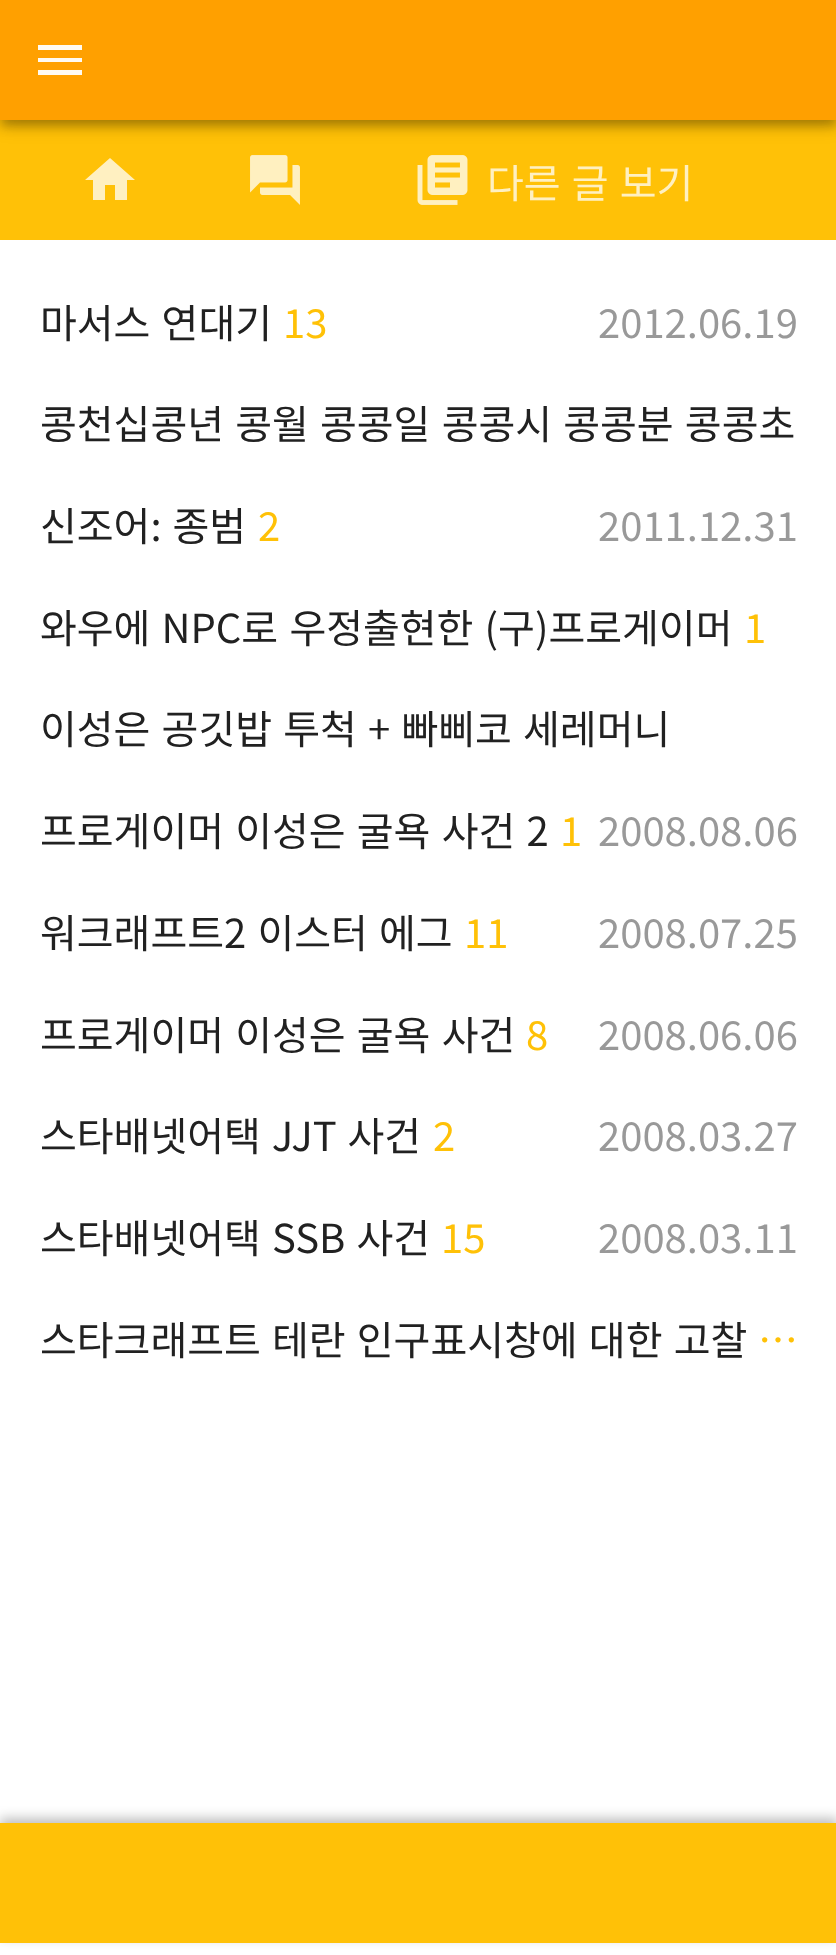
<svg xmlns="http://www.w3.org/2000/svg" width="836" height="1955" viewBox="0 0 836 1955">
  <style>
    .t1 { font: 40px Noto Sans KR; fill: #fff0c1; }
    .t2 { font: 40px Noto Sans KR; fill: #212121; }
    .t3 { font: 40px Noto Sans KR; fill: #ffc107; }
    .t4 { font: 40px Noto Sans KR; fill: #999; }
  </style>
  <rect width="100%" height="100%" fill="#fff"/>
  <rect x="0" y="120" width="836" height="120" fill="#ffc107"/>
  <rect x="0" y="3" width="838" height="120" fill="#00000033" filter="blur(10px)"/>
  <rect x="5" y="13" width="828" height="110" fill="#0000001f" filter="blur(4px)"/>
  <rect x="0" y="8" width="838" height="120" fill="#00000024" filter="blur(5px)"/>
  <rect x="0" y="0" width="836" height="120" fill="#ffa000"/>
  <path d="M38 45H82V50H38ZM38 62V58H82V62ZM38 75V70H82V75Z" fill="#fffaf2"/>
  <path d="M105 200H93V180H85L110 158L135 180H127V200H115V185H105Z" fill="#fff0c1"/>
  <image x="250" y="155" width="50" height="50" href="images/1.png"/>
  <image x="417" y="155" width="51" height="50" href="images/2.png"/>
  <text x="487" y="198" word-spacing="2.25" class="t1">다른 글 보기</text>
  <text x="40" y="338" word-spacing="2.25" class="t2">마서스 연대기</text>
  <text x="283" y="338" class="t3">13</text>
  <text x="598" y="338" class="t4">2012.06.19</text>
  <text x="40" y="439" word-spacing="2.25" class="t2">콩천십콩년 콩월 콩콩일 콩콩시 콩콩분 콩콩초</text>
  <text x="40" y="541" word-spacing="2" class="t2">신조어: 종범</text>
  <text x="258" y="541" class="t3">2</text>
  <text x="598" y="541" class="t4">2011.12.31</text>
  <text x="40" y="643" word-spacing="2.25" class="t2">와우에 NPC로 우정출현한 (구)프로게이머</text>
  <text x="744" y="643" class="t3">1</text>
  <text x="40" y="744" word-spacing="2.25" class="t2">이성은 공깃밥 투척 + 빠삐코 세레머니</text>
  <text x="40" y="846" word-spacing="2.25" class="t2">프로게이머 이성은 굴욕 사건 2</text>
  <text x="560" y="846" class="t3">1</text>
  <text x="598" y="846" class="t4">2008.08.06</text>
  <text x="40" y="948" word-spacing="2.25" class="t2">워크래프트2 이스터 에그</text>
  <text x="464" y="948" class="t3">11</text>
  <text x="598" y="948" class="t4">2008.07.25</text>
  <text x="40" y="1050" word-spacing="2.25" class="t2">프로게이머 이성은 굴욕 사건</text>
  <text x="526" y="1050" class="t3">8</text>
  <text x="598" y="1050" class="t4">2008.06.06</text>
  <text x="40" y="1151" word-spacing="2" class="t2">스타배넷어택 JJT 사건</text>
  <text x="433" y="1151" class="t3">2</text>
  <text x="598" y="1151" class="t4">2008.03.27</text>
  <text x="40" y="1253" word-spacing="2.25" class="t2">스타배넷어택 SSB 사건</text>
  <text x="441" y="1253" class="t3">15</text>
  <text x="598" y="1253" class="t4">2008.03.11</text>
  <text x="40" y="1355" word-spacing="2.25" class="t2">스타크래프트 테란 인구표시창에 대한 고찰</text>
  <text x="758" y="1355" class="t3">…</text>
  <rect x="0" y="1818" width="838" height="120" fill="#00000040" filter="blur(6px)"/>
  <rect x="0" y="1823" width="836" height="120" fill="#ffc107"/>
</svg>
